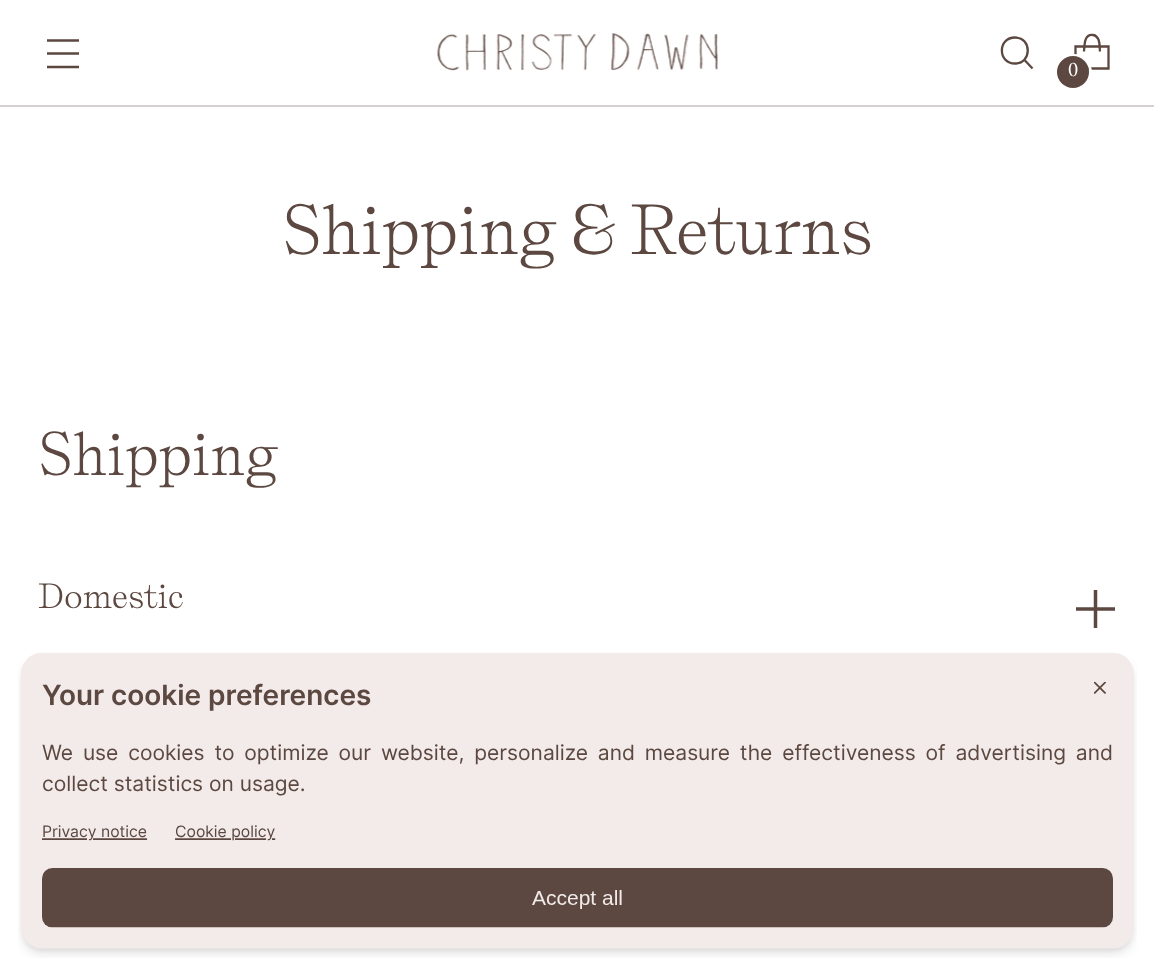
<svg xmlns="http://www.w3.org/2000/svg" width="1154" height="980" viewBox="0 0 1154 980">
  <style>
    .t1 { font: 21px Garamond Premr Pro; fill: #fff; }
    .t2 { font: 63.5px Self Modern; fill: #5c4841; }
    .t3 { font: 55.5px Self Modern; fill: #5c4841; }
    .t4 { font: 31.5px Self Modern; fill: #5c4841; }
  </style>
  <rect width="100%" height="100%" fill="#fff"/>
  <rect x="0" y="105" width="1154" height="2" fill="#d6d1d0"/>
  <path d="M47 53.5H79M47 40.5H79M47 67H79" fill="none" stroke="#5c4841" stroke-width="2.3"/>
  <image x="437" y="33" width="281" height="38" href="images/1.png"/>
  <path d="M1015 63.5C1032 63.5 1032 37.5 1015 37.5C997.5 37.5 997.5 63.5 1015 63.5Z" fill="none" stroke="#5c4841" stroke-width="2.3" stroke-linecap="round"/>
  <path d="M1024.5 60L1032.5 68.5" fill="none" stroke="#5c4841" stroke-width="2.3"/>
  <path d="M1100 51.5C1099.5 47.5 1100 43.5 1098.5 39.5C1097.5 37.5 1096 35.5 1093.5 35C1084 33 1084.5 45.5 1084 51.5" fill="none" stroke="#5c4841" stroke-width="2.3" stroke-linejoin="bevel"/>
  <path d="M1108.5 68.5V46.5H1075.5V68.5Z" fill="none" stroke="#5c4841" stroke-width="2.3"/>
  <circle cx="1073.5" cy="72.5" r="17" fill="none" stroke="#fff" stroke-width="3"/>
  <circle cx="1073" cy="72" r="16" fill="#5c4841"/>
  <text x="1068" y="76" class="t1">0</text>
  <text x="282" y="254" class="t2">Shipping &amp; Returns</text>
  <text x="38" y="475" class="t3">Shipping</text>
  <text x="38" y="608" class="t4">Domestic</text>
  <path d="M1076 609H1095.5M1115 609H1095.5M1095.5 609V590M1095.5 609V628" fill="none" stroke="#5c4841" stroke-width="3.5"/>
  <image x="18" y="652" width="1119" height="306" href="images/2.png"/>
</svg>
